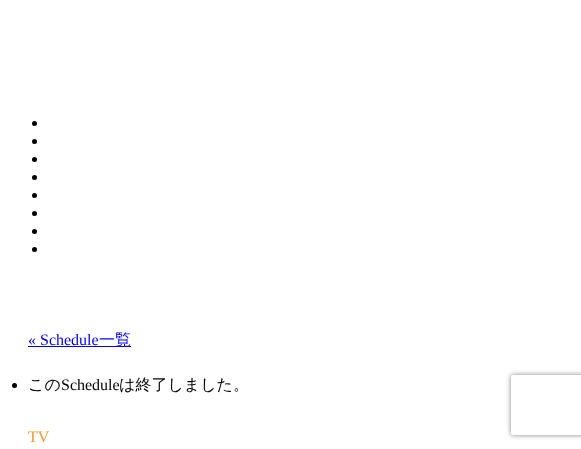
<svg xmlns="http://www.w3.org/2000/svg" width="581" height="449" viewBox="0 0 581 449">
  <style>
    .t1 { font: 16px Liberation Serif; fill: #00e; }
    .t2 { font: 500 16px WenQuanYi Zen Hei; fill: #00e; }
    .t3 { font: 500 16px WenQuanYi Zen Hei; fill: #000; }
    .t4 { font: 16px Liberation Serif; fill: #000; }
    .t5 { font: 16px Liberation Serif; fill: #f19937; }
  </style>
  <defs>
    <clipPath id="clip1"><path d="M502 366H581V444H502ZM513 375H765C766 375 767 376 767 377V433C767 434 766 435 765 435H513C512 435 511 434 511 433V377C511 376 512 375 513 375Z" clip-rule="evenodd"/></clipPath>
  </defs>
  <rect width="100%" height="100%" fill="#fff"/>
  <circle cx="34.5" cy="123.5" r="2.5" fill="#000"/>
  <circle cx="34.5" cy="141.5" r="2.5" fill="#000"/>
  <circle cx="34.5" cy="159.5" r="2.5" fill="#000"/>
  <circle cx="34.5" cy="177.5" r="2.5" fill="#000"/>
  <circle cx="34.5" cy="195.5" r="2.5" fill="#000"/>
  <circle cx="34.5" cy="213.5" r="2.5" fill="#000"/>
  <circle cx="34.5" cy="231.5" r="2.5" fill="#000"/>
  <circle cx="34.5" cy="249.5" r="2.5" fill="#000"/>
  <text x="28" y="345" class="t1">« Schedule</text>
  <rect x="28" y="346" width="103" height="1" fill="#00e"/>
  <text x="99" y="345" class="t2">一覧</text>
  <circle cx="14.5" cy="385.5" r="2.5" fill="#000"/>
  <text x="28" y="390" class="t3">この</text>
  <text x="61" y="390" class="t4">Schedule</text>
  <text x="119" y="390" class="t3">は終了しました。</text>
  <text x="28" y="442" class="t5">TV</text>
  <g clip-path="url(#clip1)">
    <rect x="511" y="375" width="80" height="60" rx="2" fill="#808080" filter="blur(2.5px)"/>
  </g>
</svg>
